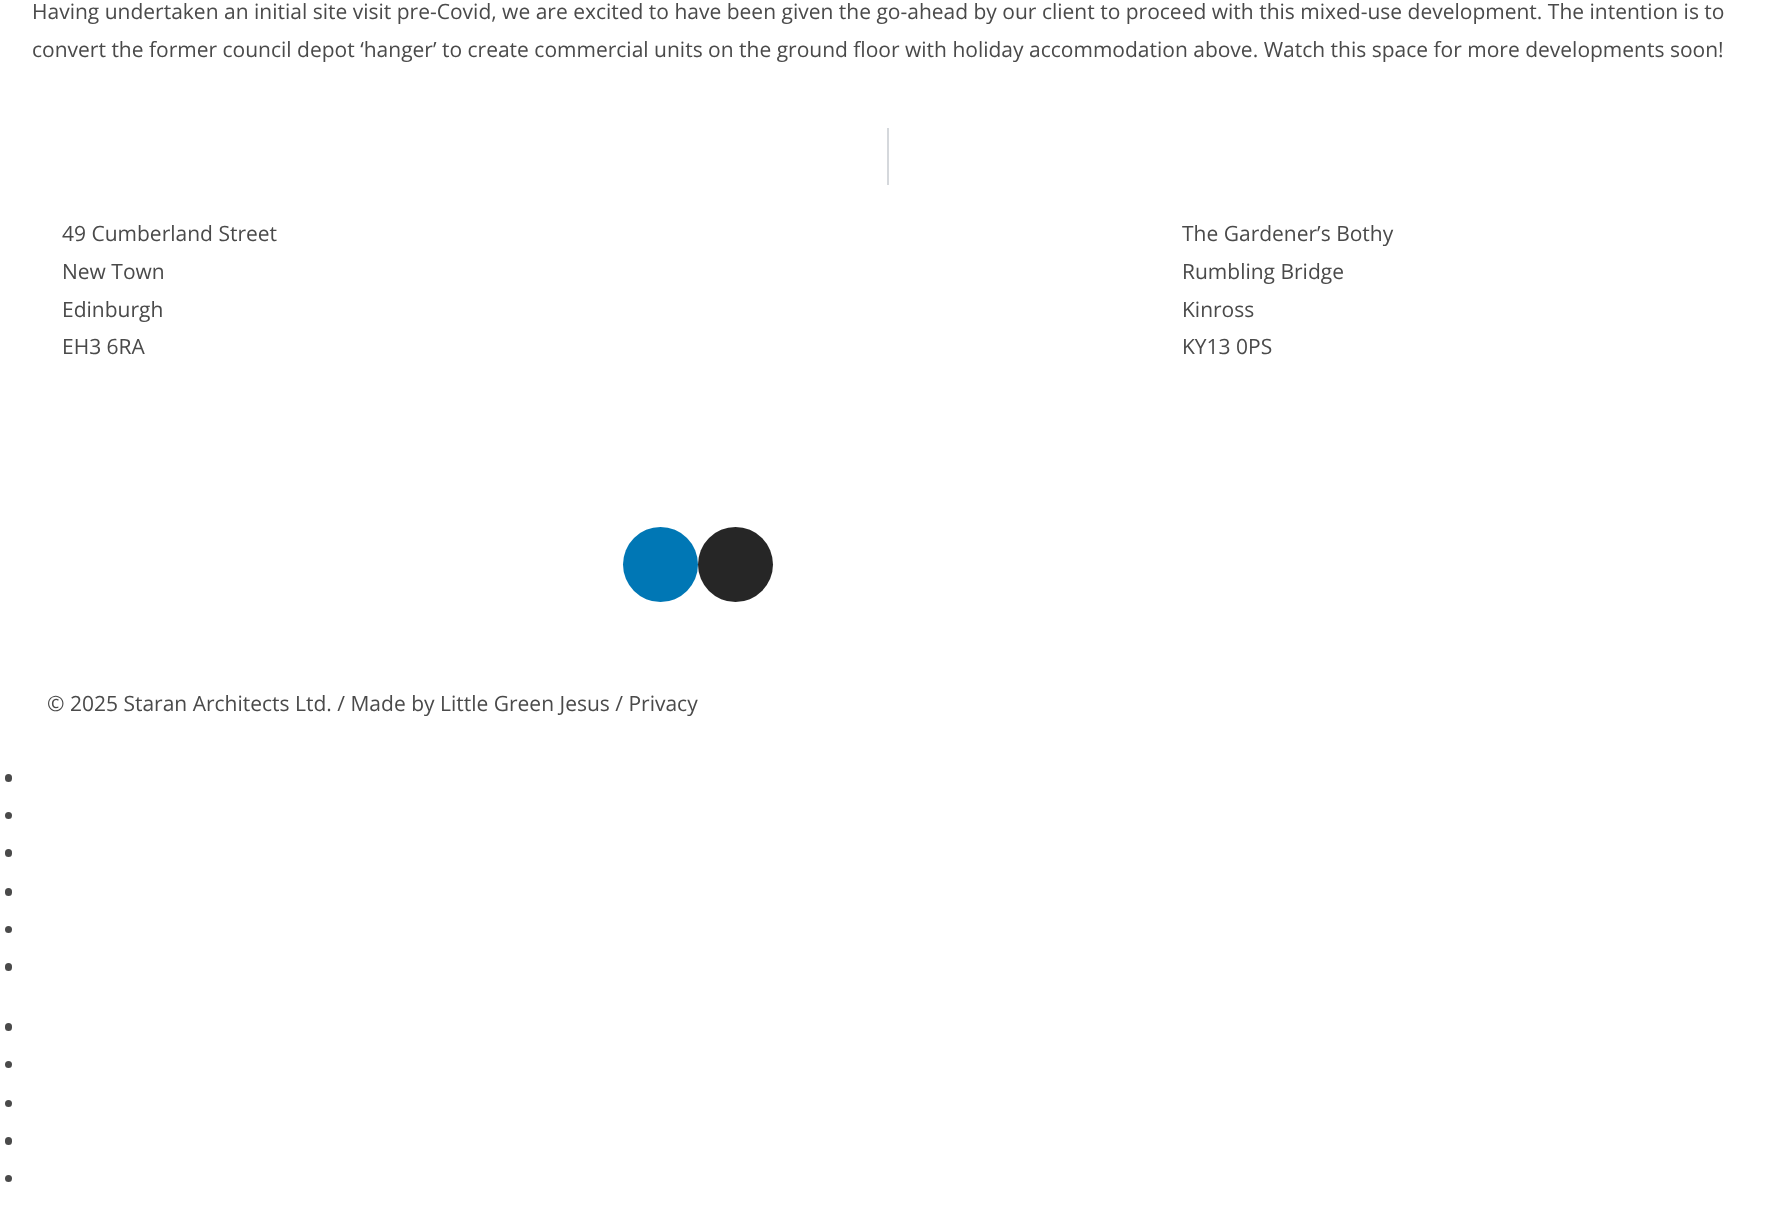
<svg xmlns="http://www.w3.org/2000/svg" width="1774" height="1211" viewBox="0 0 1774 1211">
  <style>
    .t1 { font: 21px Open Sans; fill: #4a4a4a; }
  </style>
  <rect width="100%" height="100%" fill="#fff"/>
  <text x="32" y="19" class="t1">Having undertaken an initial site visit pre-Covid, we are excited to have been given the go-ahead by our client to proceed with this mixed-use development. The intention is to</text>
  <text x="32" y="57" class="t1">convert the former council depot ‘hanger’ to create commercial units on the ground floor with holiday accommodation above. Watch this space for more developments soon!</text>
  <rect x="887" y="128" width="2" height="57" fill="#d5d8dc"/>
  <text x="62" y="241" class="t1">49 Cumberland Street</text>
  <text x="62" y="279" class="t1">New Town</text>
  <text x="62" y="317" class="t1">Edinburgh</text>
  <text x="62" y="354" class="t1">EH3 6RA</text>
  <text x="1182" y="241" class="t1">The Gardener’s Bothy</text>
  <text x="1182" y="279" class="t1">Rumbling Bridge</text>
  <text x="1182" y="317" class="t1">Kinross</text>
  <text x="1182" y="354" class="t1">KY13 0PS</text>
  <circle cx="660.5" cy="564.5" r="37.5" fill="#0077b5"/>
  <circle cx="735.5" cy="564.5" r="37.5" fill="#262626"/>
  <text x="47" y="711" class="t1">© 2025 Staran Architects Ltd. / Made by Little Green Jesus / Privacy</text>
  <rect x="5" y="774" width="7" height="8" rx="3.5" fill="#4a4a4a"/>
  <circle cx="8.5" cy="815.5" r="3.5" fill="#4a4a4a"/>
  <rect x="5" y="849" width="7" height="8" rx="3.5" fill="#4a4a4a"/>
  <rect x="5" y="888" width="7" height="8" rx="3.5" fill="#4a4a4a"/>
  <circle cx="8.5" cy="929.5" r="3.5" fill="#4a4a4a"/>
  <rect x="5" y="963" width="7" height="8" rx="3.5" fill="#4a4a4a"/>
  <rect x="5" y="1023" width="7" height="8" rx="3.5" fill="#4a4a4a"/>
  <circle cx="8.5" cy="1064.5" r="3.5" fill="#4a4a4a"/>
  <circle cx="8.5" cy="1103.5" r="3.5" fill="#4a4a4a"/>
  <rect x="5" y="1137" width="7" height="8" rx="3.5" fill="#4a4a4a"/>
  <circle cx="8.5" cy="1178.5" r="3.5" fill="#4a4a4a"/>
</svg>
